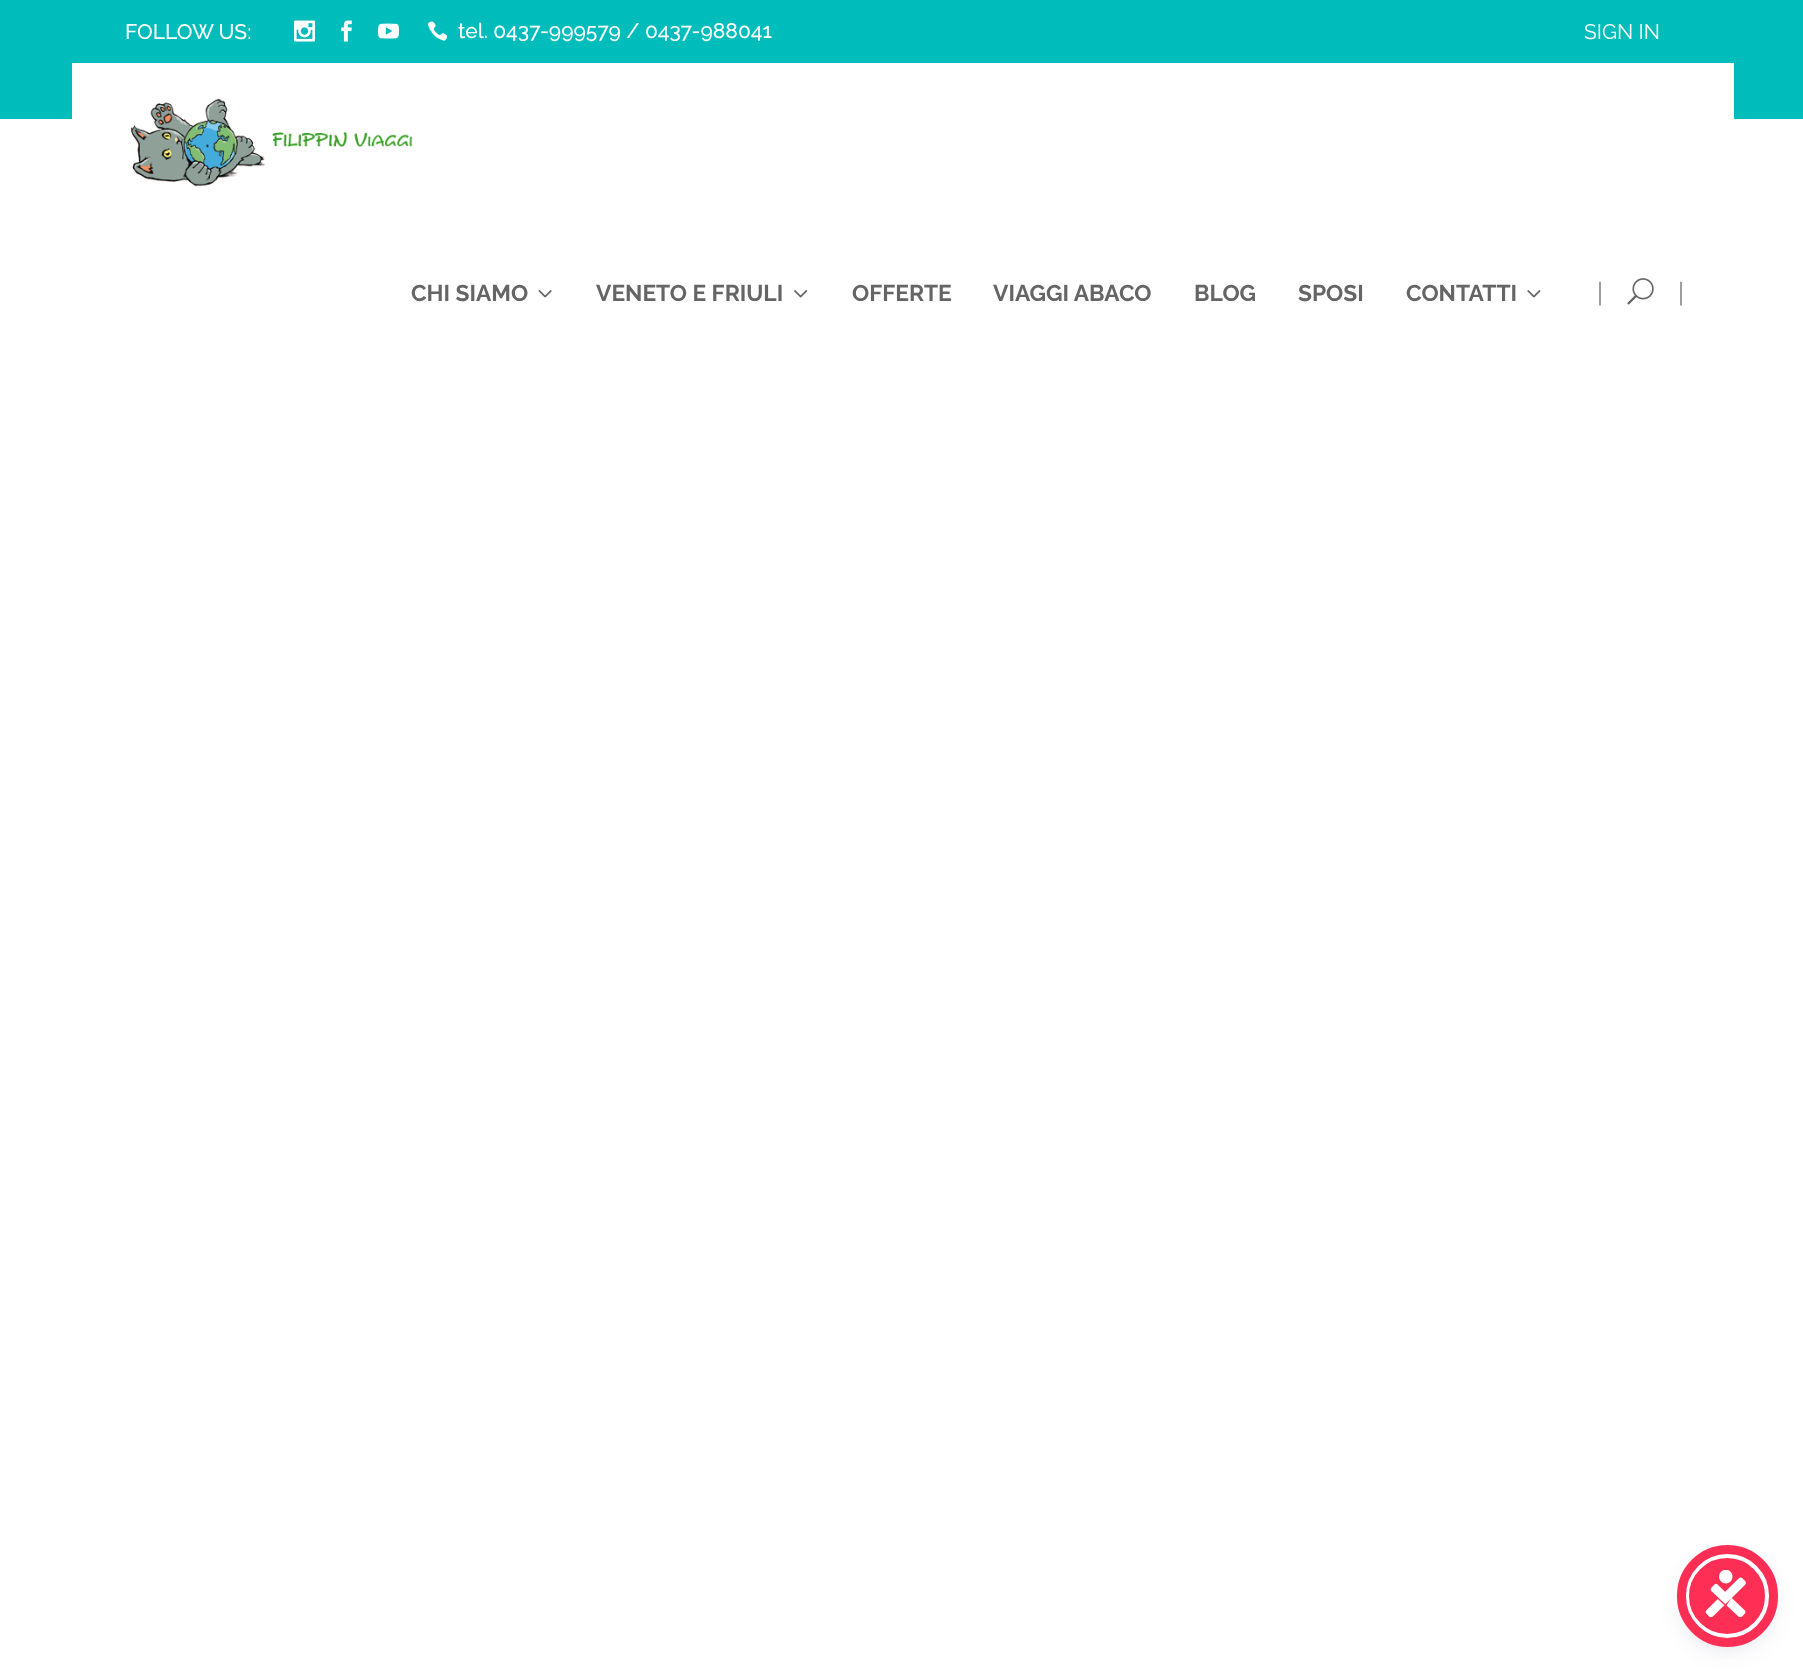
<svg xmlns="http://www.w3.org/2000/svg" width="1803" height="1673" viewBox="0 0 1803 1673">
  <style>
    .t1 { font: 500 21px Raleway; fill: #fff; }
    .t2 { font: 21px Raleway; fill: #fff; }
    .t3 { font: bold 22.75px Raleway; fill: #656565; }
    .t4 { font: 26px Raleway; fill: #808285; }
  </style>
  <rect width="100%" height="100%" fill="#fff"/>
  <rect x="0" y="0" width="1803" height="119" fill="#00bdbb"/>
  <text x="125" y="39" class="t1">FOLLOW US:</text>
  <image x="294" y="20" width="21" height="22" href="images/1.png"/>
  <image x="341" y="20" width="11" height="22" href="images/2.png"/>
  <image x="378" y="23" width="21" height="16" href="images/3.png"/>
  <image x="427" y="21" width="21" height="20" href="images/4.png"/>
  <text x="458" y="38" class="t1">tel. 0437-999579 / 0437-988041</text>
  <text x="1584" y="39" class="t2">SIGN IN</text>
  <rect x="72" y="63" width="1662" height="56" fill="#fff"/>
  <image x="130" y="98" width="283" height="89" href="images/5.png"/>
  <text x="411" y="301" class="t3">CHI SIAMO</text>
  <image x="538" y="290" width="14" height="8" href="images/6.png"/>
  <text x="596" y="301" class="t3">VENETO E FRIULI</text>
  <image x="794" y="290" width="14" height="8" href="images/7.png"/>
  <text x="852" y="301" class="t3">OFFERTE</text>
  <text x="993" y="301" class="t3">VIAGGI ABACO</text>
  <text x="1194" y="301" class="t3">BLOG</text>
  <text x="1298" y="301" class="t3">SPOSI</text>
  <text x="1406" y="301" class="t3">CONTATTI</text>
  <image x="1527" y="290" width="14" height="8" href="images/8.png"/>
  <text x="1597" y="302" class="t4">|</text>
  <image x="1627" y="278" width="27" height="27" href="images/9.png"/>
  <text x="1678" y="302" class="t4">|</text>
  <rect x="1685" y="1558" width="84" height="84" rx="42" fill="#5d649433" filter="blur(3.5px)"/>
  <rect x="1685" y="1563" width="84" height="84" rx="42" fill="#252c6126" filter="blur(13px)"/>
  <circle cx="1727" cy="1596" r="40" fill="#ff2e55" stroke="#fff" stroke-width="4"/>
  <rect x="1681.5" y="1549.5" width="92" height="93" rx="46" fill="none" stroke="#ff2e55" stroke-width="9"/>
  <image x="1705" y="1570" width="41" height="47" href="images/10.png"/>
</svg>
